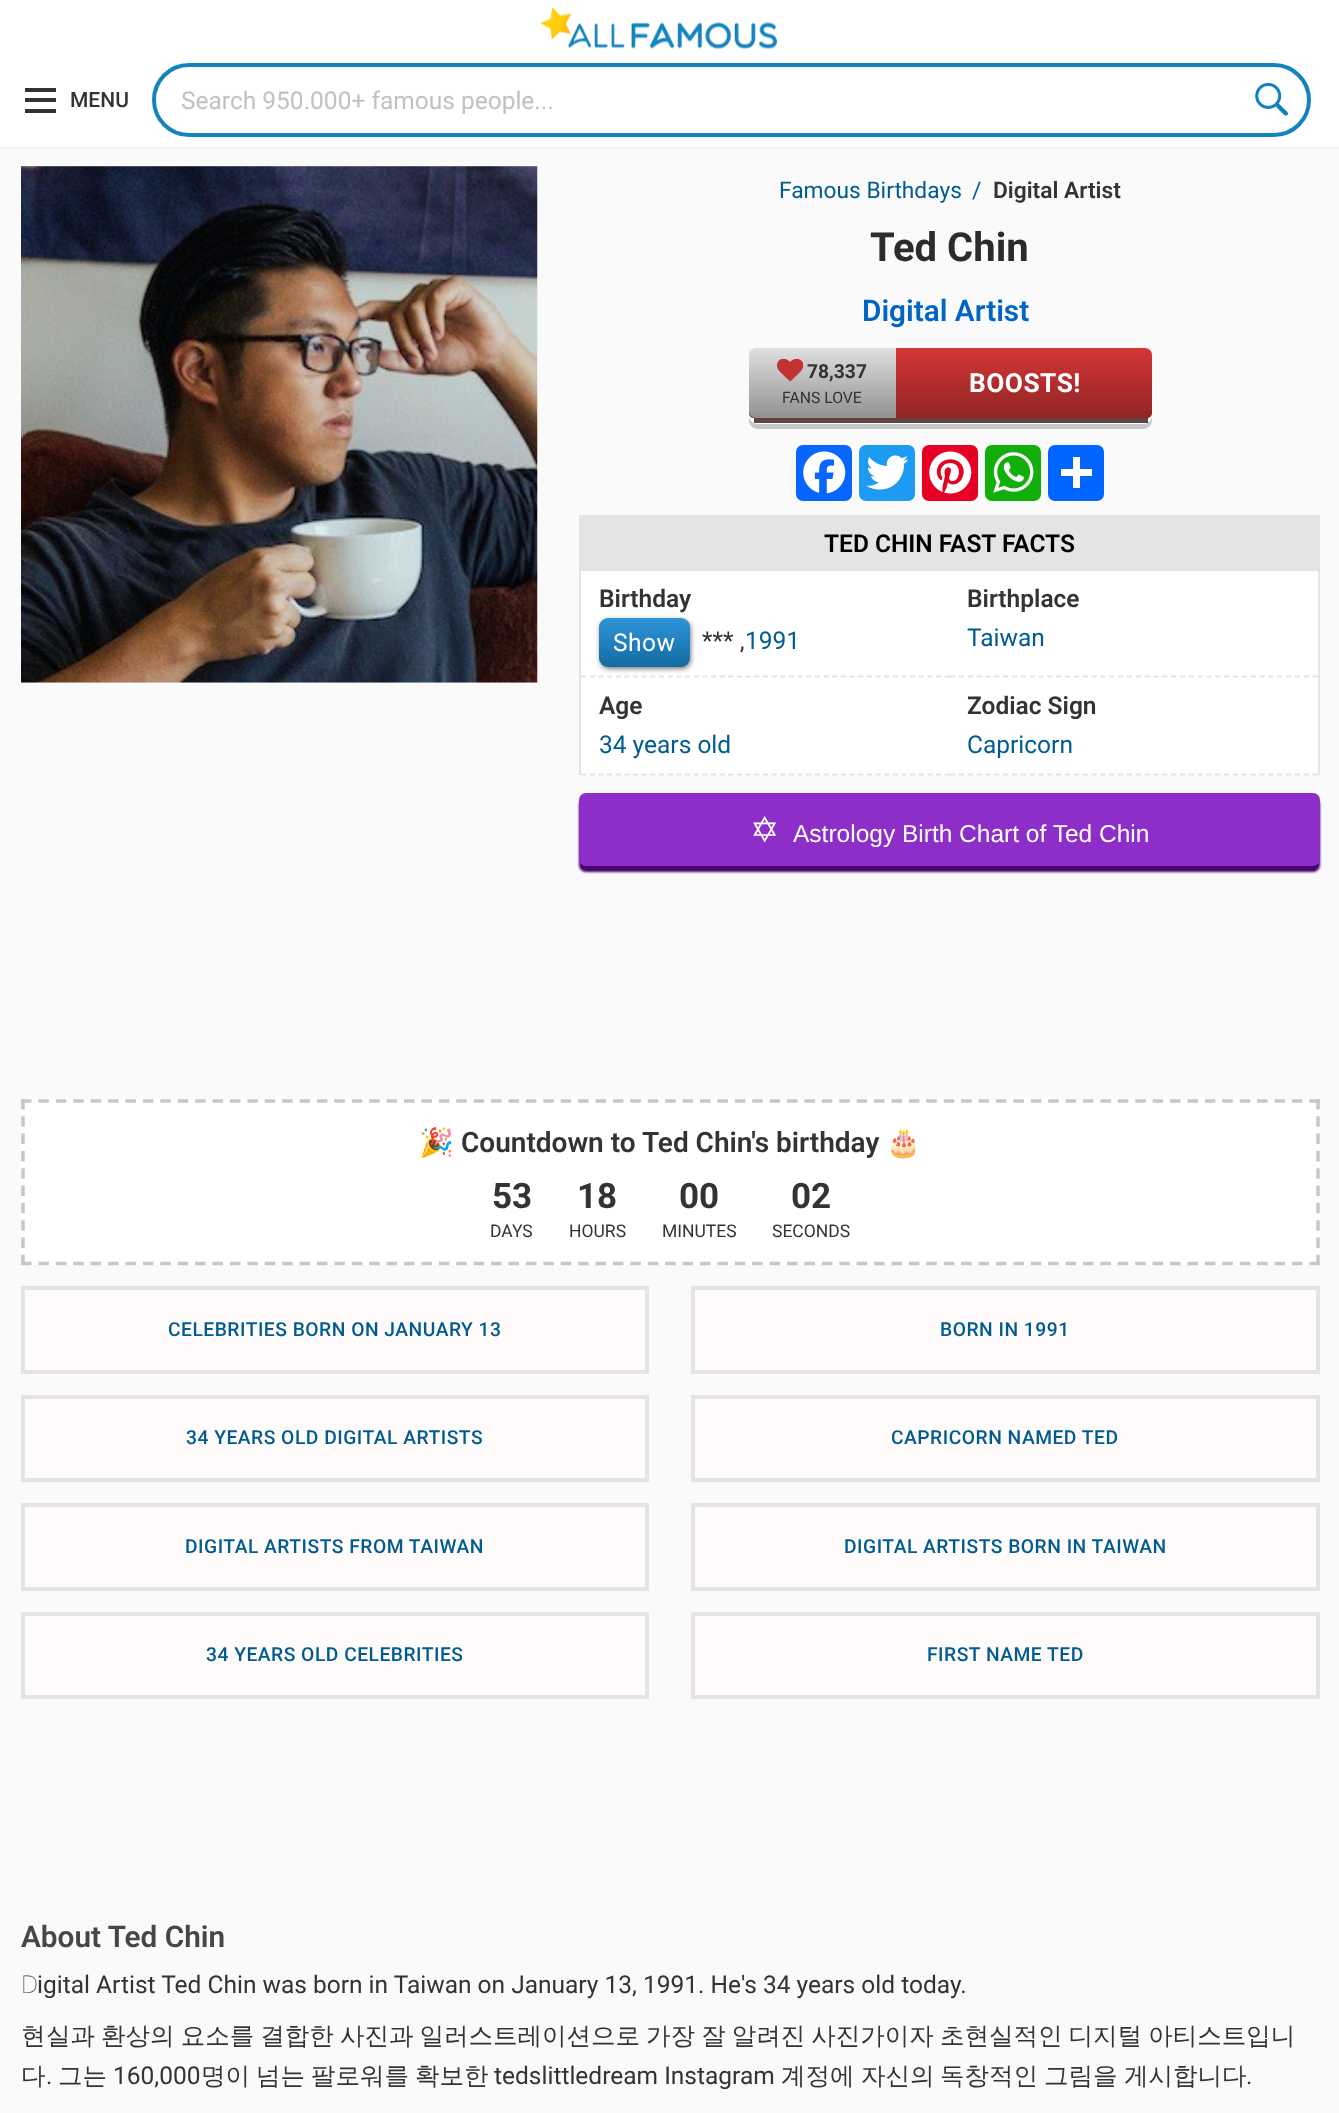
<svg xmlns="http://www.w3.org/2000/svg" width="1339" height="2113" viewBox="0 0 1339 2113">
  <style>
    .t1 { font: 500 21px Roboto; fill: #333; }
    .t2 { font: 24.5px Roboto; fill: #c1c1c1; }
    .t3 { font: 22.75px Roboto; fill: #005c8f; }
    .t4 { font: 600 22.75px Roboto; fill: #333; }
    .t5 { font: bold 40px Roboto; fill: #2d2a2a; }
    .t6 { font: 600 29.75px Roboto; fill: #0065c4; }
    .t7 { font: bold 19.25px Roboto; fill: #333; }
    .t8 { font: 15.75px Roboto; fill: #333; }
    .t9 { font: bold 26.25px Roboto; letter-spacing: 0.5px; fill: #fff; }
    .t10 { font: 600 24.5px Roboto; fill: #000; }
    .t11 { font: 600 24.5px Roboto; fill: #333; }
    .t12 { font: 24.5px Roboto; letter-spacing: 0.5px; fill: #fff; }
    .t13 { font: 24.5px Roboto; fill: #333; }
    .t14 { font: 24.5px Roboto; fill: #005c8f; }
    .t15 { font: 35px DejaVu Sans; fill: #fff; }
    .t16 { font: 24.5px Liberation Sans; fill: #fff; }
    .t17 { font: bold 28px Noto Color Emoji; fill: #333; }
    .t18 { font: 600 28px Roboto; fill: #333; }
    .t19 { font: bold 35px Roboto; fill: #333; }
    .t20 { font: 17.5px Roboto; fill: #333; }
    .t21 { font: 500 19.25px Roboto; letter-spacing: 0.5px; fill: #005c8f; }
    .t22 { font: 600 29.75px Roboto; fill: #464646; }
    .t23 { font: 100 24.5px Noto Sans; fill: #333; }
    .t24 { font: 24.5px Noto Sans; fill: #333; }
    .t25 { font: 500 24.5px WenQuanYi Zen Hei; fill: #333; }
  </style>
  <defs>
    <linearGradient id="g1" gradientUnits="userSpaceOnUse" x1="950" y1="348" x2="950" y2="418"><stop offset="0" stop-color="#d63636"/><stop offset="1" stop-color="#902525"/></linearGradient>
    <linearGradient id="g2" gradientUnits="userSpaceOnUse" x1="823" y1="348" x2="823" y2="418"><stop offset="0" stop-color="#e0e0e0"/><stop offset="1" stop-color="#929090"/></linearGradient>
    <linearGradient id="g3" gradientUnits="userSpaceOnUse" x1="644" y1="618" x2="644" y2="667"><stop offset="0" stop-color="#2e95d9"/><stop offset="1" stop-color="#146ba1"/></linearGradient>
  </defs>
  <rect width="100%" height="100%" fill="#fafafa"/>
  <rect x="0" y="0" width="1339" height="147" fill="#fff"/>
  <rect x="0" y="147" width="1339" height="2" fill="#f3f3f3"/>
  <image x="540" y="7" width="237" height="42" href="images/1.png"/>
  <rect x="25" y="98" width="31" height="4" fill="#333"/>
  <rect x="25" y="88" width="31" height="4" fill="#333"/>
  <rect x="25" y="109" width="31" height="4" fill="#333"/>
  <text x="70" y="107" class="t1">MENU</text>
  <rect x="154" y="65" width="1155" height="70" rx="35" fill="none" stroke="#1283be" stroke-width="4"/>
  <text x="181" y="109" class="t2">Search 950.000+ famous people...</text>
  <image x="1255" y="82" width="33" height="34" href="images/2.png"/>
  <rect x="21" y="166" width="516" height="517" fill="#e9e9e9"/>
  <image x="21" y="166" width="517" height="517" href="images/3.png"/>
  <text x="779" y="198" class="t3">Famous Birthdays</text>
  <text x="972" y="198" class="t3">/</text>
  <text x="993" y="198" class="t4">Digital Artist</text>
  <text x="870" y="261" class="t5">Ted Chin</text>
  <text x="862" y="321" class="t6">Digital Artist</text>
  <path d="M749 415V420C749 425 753 429 758 429H1143C1148 429 1152 425 1152 420V363V360V415C1152 420 1148 424 1143 424H758C753 424 749 420 749 415Z" fill="#c8c8c8"/>
  <rect x="749" y="348" width="403" height="76" rx="9" fill="#fff"/>
  <rect x="754" y="418" width="394" height="5" fill="#5f4444"/>
  <path d="M758 348H1145C1149 348 1152 351 1152 355V413C1152 416 1150 418 1147 418H754C751 418 749 416 749 413V357C749 352 753 348 758 348Z" fill="url(#g1)"/>
  <path d="M756 348H896V418H756C752 418 749 415 749 411V355C749 351 752 348 756 348Z" fill="url(#g2)"/>
  <image x="777" y="359" width="26" height="23" href="images/4.png"/>
  <text x="807" y="378" class="t7">78,337</text>
  <text x="782" y="403" class="t8">FANS LOVE</text>
  <text x="969" y="392" class="t9">BOOSTS!</text>
  <rect x="796" y="445" width="56" height="56" rx="7" fill="#0866ff"/>
  <image x="803" y="451" width="43" height="43" href="images/5.png"/>
  <rect x="859" y="445" width="56" height="56" rx="7" fill="#1d9bf0"/>
  <image x="866" y="455" width="43" height="35" href="images/6.png"/>
  <rect x="922" y="445" width="56" height="56" rx="7" fill="#e60023"/>
  <image x="929" y="451" width="43" height="43" href="images/7.png"/>
  <rect x="985" y="445" width="56" height="56" rx="7" fill="#12af0a"/>
  <image x="993" y="452" width="41" height="41" href="images/8.png"/>
  <rect x="1048" y="445" width="56" height="56" rx="7" fill="#0166ff"/>
  <rect x="1073" y="457" width="7" height="31" fill="#fff"/>
  <rect x="1061" y="469" width="31" height="7" fill="#fff"/>
  <rect x="581" y="571" width="737" height="204" fill="#fff"/>
  <rect x="579" y="515" width="741" height="1" fill="#e4e4e4"/>
  <rect x="1318" y="515" width="2" height="260" fill="#e4e4e4"/>
  <rect x="579" y="515" width="2" height="260" fill="#e4e4e4"/>
  <rect x="581" y="516" width="737" height="55" fill="#e4e4e4"/>
  <text x="824" y="552" class="t10">TED CHIN FAST FACTS</text>
  <path d="M581 676.5H950" fill="none" stroke="#e4e4e4" stroke-width="1.8" stroke-dasharray="5.25 3.41"/>
  <text x="599" y="607" class="t11">Birthday</text>
  <rect x="600" y="620" width="91" height="49" rx="9" fill="#00000080" filter="blur(2.5px)"/>
  <rect x="599" y="618" width="91" height="49" rx="9" fill="url(#g3)"/>
  <text x="613" y="651" class="t12">Show</text>
  <text x="702" y="649" class="t13">*** ,</text>
  <text x="745" y="649" class="t14">1991</text>
  <path d="M950 676.5H1318" fill="none" stroke="#e4e4e4" stroke-width="1.8" stroke-dasharray="5.25 3.59"/>
  <text x="967" y="607" class="t11">Birthplace</text>
  <text x="967" y="646" class="t14">Taiwan</text>
  <path d="M581 774.5H950" fill="none" stroke="#e4e4e4" stroke-width="1.8" stroke-dasharray="5.25 3.41"/>
  <text x="599" y="714" class="t11">Age</text>
  <text x="599" y="753" class="t14">34 years old</text>
  <path d="M950 774.5H1318" fill="none" stroke="#e4e4e4" stroke-width="1.8" stroke-dasharray="5.25 3.59"/>
  <text x="967" y="714" class="t11">Zodiac Sign</text>
  <text x="967" y="753" class="t14">Capricorn</text>
  <rect x="579" y="798" width="741" height="74" rx="7" fill="#460070" filter="blur(1px)"/>
  <rect x="579" y="793" width="741" height="73" rx="7" fill="#8c2ec7"/>
  <text x="750" y="842" class="t15">✡</text>
  <text x="793" y="842" class="t16">Astrology Birth Chart of Ted Chin</text>
  <rect x="21" y="1099" width="1299" height="166" fill="#fff"/>
  <path d="M21 1101H1319.5" fill="none" stroke="#c7c7c7" stroke-width="3.5" stroke-dasharray="10.5 6.91"/>
  <path d="M1318 1099V1265" fill="none" stroke="#c7c7c7" stroke-width="3.5" stroke-dasharray="10.5 6.81"/>
  <path d="M21 1263.5H1319.5" fill="none" stroke="#c7c7c7" stroke-width="3.5" stroke-dasharray="10.5 6.91"/>
  <path d="M23 1099V1265" fill="none" stroke="#c7c7c7" stroke-width="3.5" stroke-dasharray="10.5 6.81"/>
  <text x="419" y="1152" class="t17">🎉</text>
  <text x="461" y="1152" class="t18">Countdown to Ted Chin's birthday</text>
  <text x="886" y="1152" class="t17">🎂</text>
  <text x="492" y="1208" class="t19">53</text>
  <text x="490" y="1237" class="t20">DAYS</text>
  <text x="577" y="1208" class="t19">18</text>
  <text x="569" y="1237" class="t20">HOURS</text>
  <text x="679" y="1208" class="t19">00</text>
  <text x="662" y="1237" class="t20">MINUTES</text>
  <text x="791" y="1208" class="t19">02</text>
  <text x="772" y="1237" class="t20">SECONDS</text>
  <rect x="23" y="1288" width="624" height="84" fill="#fffbfb" stroke="#e4e4e4" stroke-width="4"/>
  <text x="168" y="1336" class="t21">CELEBRITIES BORN ON JANUARY 13</text>
  <rect x="693" y="1288" width="625" height="84" fill="#fffbfb" stroke="#e4e4e4" stroke-width="4"/>
  <text x="940" y="1336" class="t21">BORN IN 1991</text>
  <rect x="23" y="1397" width="624" height="83" fill="#fffbfb" stroke="#e4e4e4" stroke-width="4"/>
  <text x="186" y="1444" class="t21">34 YEARS OLD DIGITAL ARTISTS</text>
  <rect x="693" y="1397" width="625" height="83" fill="#fffbfb" stroke="#e4e4e4" stroke-width="4"/>
  <text x="891" y="1444" class="t21">CAPRICORN NAMED TED</text>
  <rect x="23" y="1505" width="624" height="84" fill="#fffbfb" stroke="#e4e4e4" stroke-width="4"/>
  <text x="185" y="1553" class="t21">DIGITAL ARTISTS FROM TAIWAN</text>
  <rect x="693" y="1505" width="625" height="84" fill="#fffbfb" stroke="#e4e4e4" stroke-width="4"/>
  <text x="844" y="1553" class="t21">DIGITAL ARTISTS BORN IN TAIWAN</text>
  <rect x="23" y="1614" width="624" height="83" fill="#fffbfb" stroke="#e4e4e4" stroke-width="4"/>
  <text x="206" y="1661" class="t21">34 YEARS OLD CELEBRITIES</text>
  <rect x="693" y="1614" width="625" height="83" fill="#fffbfb" stroke="#e4e4e4" stroke-width="4"/>
  <text x="927" y="1661" class="t21">FIRST NAME TED</text>
  <text x="21" y="1947" class="t22">About Ted Chin</text>
  <text x="21" y="1993" class="t23">D</text>
  <text x="37" y="1993" class="t13">igital Artist Ted Chin was born in Taiwan on January 13, 1991. He's 34 years old today.</text>
  <text x="21" y="2044" class="t24">현</text>
  <text x="46" y="2044" word-spacing="-1.25" class="t25">실과 환상의 요소를 결합한 사진과 일러스트레이션으로 가장 잘 알려진 사진가이자 초현실적인 디지털 아티스트입니</text>
  <text x="21" y="2084" class="t25">다</text>
  <text x="46" y="2084" class="t13">.</text>
  <text x="58" y="2084" class="t25">그는</text>
  <text x="113" y="2084" class="t13">160,000</text>
  <text x="201" y="2084" class="t25">명이</text>
  <text x="256" y="2084" class="t25">넘는</text>
  <text x="311" y="2084" class="t25">팔로워를</text>
  <text x="415" y="2084" class="t25">확보한</text>
  <text x="494" y="2084" class="t13">tedslittledream Instagram</text>
  <text x="781" y="2084" class="t25">계정에</text>
  <text x="861" y="2084" class="t25">자신의</text>
  <text x="940" y="2084" class="t25">독창적인</text>
  <text x="1044" y="2084" class="t25">그림을</text>
  <text x="1124" y="2084" class="t25">게시합니다</text>
  <text x="1246" y="2084" class="t13">.</text>
</svg>
